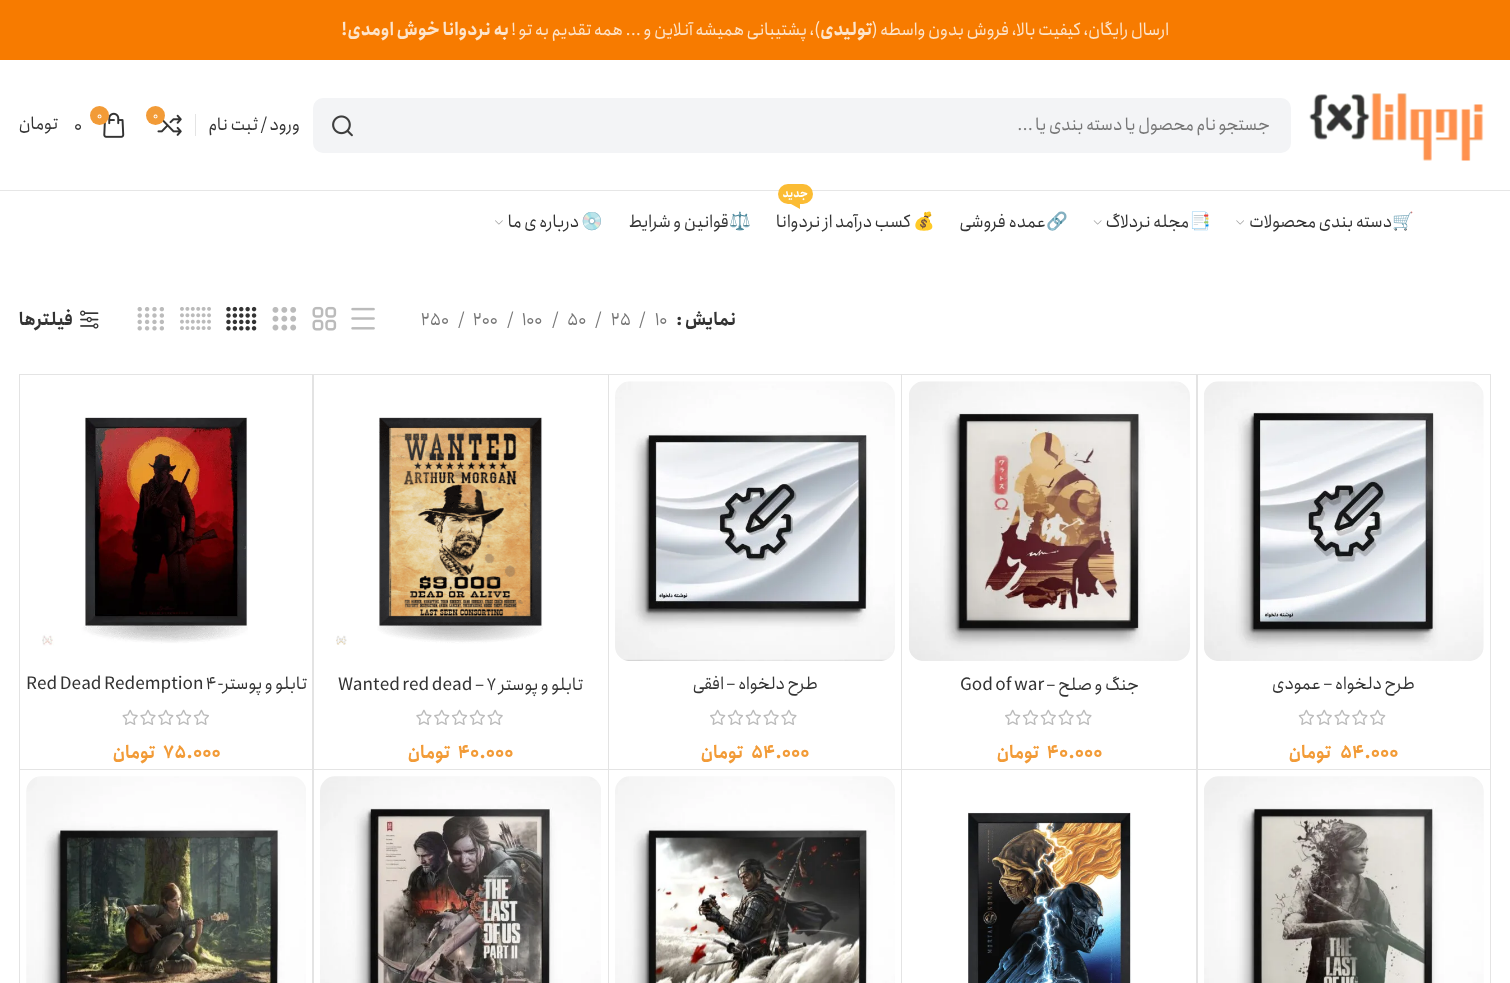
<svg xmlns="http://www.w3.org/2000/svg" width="1510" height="983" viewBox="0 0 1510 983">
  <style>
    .t1 { font: 17.5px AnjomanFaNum; direction: rtl; fill: #fde5cc; }
    .t2 { font: bold 17.5px AnjomanFaNum; direction: rtl; fill: #fde5cc; }
    .t3 { font: 17.5px AnjomanFaNum; direction: rtl; fill: #767676; }
    .t4 { font: 17.5px AnjomanFaNum; direction: rtl; fill: #333; }
    .t5 { font: 11px AnjomanFaNum; fill: #fff; }
    .t6 { font: 17.5px AnjomanFaNum; fill: #333; }
    .t7 { font: 17.5px Noto Color Emoji; direction: rtl; fill: #333; }
    .t8 { font: bold 11px AnjomanFaNum; direction: rtl; fill: #fff; }
    .t9 { font: bold 17.5px AnjomanFaNum; direction: rtl; fill: #333; }
    .t10 { font: bold 17.5px AnjomanFaNum; fill: #333; }
    .t11 { font: 17.5px AnjomanFaNum; fill: #767676; }
    .t12 { font: bold 17.5px AnjomanFaNum; fill: #f29b37; }
    .t13 { font: bold 17.5px AnjomanFaNum; direction: rtl; fill: #f29b37; }
  </style>
  <rect width="100%" height="100%" fill="#fff"/>
  <rect x="0" y="0" width="1510" height="60" fill="#f77b00"/>
  <text x="1169" y="35" class="t1">ارسال رایگان، کیفیت بالا، فروش بدون واسطه (</text>
  <text x="872" y="35" class="t2">تولیدی</text>
  <text x="820" y="35" class="t1">)، پشتیبانی همیشه آنلاین و ... همه تقدیم به تو !</text>
  <text x="509" y="35" class="t2">به نردوانا خوش اومدی!</text>
  <rect x="0" y="190" width="1510" height="1" fill="#e6e6e6"/>
  <image x="1309" y="93" width="175" height="68" href="images/1.png"/>
  <rect x="313" y="98" width="978" height="55" rx="10" fill="#f3f4f6"/>
  <text x="1270" y="130" class="t3">جستجو نام محصول یا دسته بندی یا ...</text>
  <image x="332" y="115" width="21" height="22" href="images/2.png"/>
  <text x="300" y="130" class="t4">ورود / ثبت نام</text>
  <rect x="195" y="114" width="1" height="22" fill="#e4e4e4"/>
  <image x="157" y="114" width="25" height="22" href="images/3.png"/>
  <circle cx="155.5" cy="115.5" r="9.5" fill="#f29b37"/>
  <text x="153" y="119" class="t5">0</text>
  <image x="103" y="112" width="22" height="26" href="images/4.png"/>
  <circle cx="99.5" cy="115.5" r="9.5" fill="#f29b37"/>
  <text x="97" y="119" class="t5">0</text>
  <text x="74" y="131" class="t6">0</text>
  <text x="58" y="129" class="t4">تومان</text>
  <text x="1392" y="227" class="t4">دسته بندی محصولات</text>
  <text x="1414" y="227" class="t7">🛒</text>
  <image x="1236" y="220" width="8" height="5" href="images/5.png"/>
  <text x="1211" y="227" class="t7">📑</text>
  <text x="1189" y="227" class="t4">مجله نردلاگ</text>
  <image x="1093" y="220" width="9" height="5" href="images/6.png"/>
  <text x="1068" y="227" class="t7">🔗</text>
  <text x="1046" y="227" class="t4">عمده فروشی</text>
  <rect x="778" y="184" width="35" height="20" rx="10" fill="#fbbc34"/>
  <text x="808" y="197" class="t8">جدید</text>
  <path d="M791 204H800V209Z" fill="#fbbc34"/>
  <text x="935" y="227" class="t7">💰</text>
  <text x="911" y="227" class="t4">کسب درآمد از نردوانا</text>
  <text x="751" y="227" class="t7">⚖️</text>
  <text x="729" y="227" class="t4">قوانین و شرایط</text>
  <text x="603" y="227" class="t7">💿</text>
  <text x="579" y="227" class="t4">درباره ی ما</text>
  <image x="495" y="220" width="8" height="5" href="images/7.png"/>
  <text x="736" y="325" class="t9">نمایش</text>
  <text x="676" y="325" class="t10">:</text>
  <text x="655" y="325" class="t11">10</text>
  <text x="639" y="325" class="t11">/</text>
  <text x="611" y="325" class="t11">25</text>
  <text x="595" y="325" class="t11">/</text>
  <text x="567" y="325" class="t11">50</text>
  <text x="552" y="325" class="t11">/</text>
  <text x="522" y="325" class="t11">100</text>
  <text x="507" y="325" class="t11">/</text>
  <text x="473" y="325" class="t11">200</text>
  <text x="458" y="325" class="t11">/</text>
  <text x="421" y="325" class="t11">250</text>
  <image x="351" y="307" width="24" height="23" href="images/8.png"/>
  <image x="312" y="306" width="25" height="25" href="images/9.png"/>
  <image x="272" y="307" width="25" height="24" href="images/10.png"/>
  <image x="226" y="306" width="31" height="25" href="images/11.png"/>
  <image x="180" y="307" width="31" height="23" href="images/12.png"/>
  <image x="137" y="307" width="27" height="24" href="images/13.png"/>
  <image x="80" y="310" width="19" height="19" href="images/14.png"/>
  <text x="73" y="325" class="t9">فیلترها</text>
  <rect x="1490" y="374" width="1" height="609" fill="#e4e4e4"/>
  <path d="M1196 374H1490V375H1198Z" fill="#e4e4e4"/>
  <path d="M1490 770H1196L1198 769H1490Z" fill="#e4e4e4"/>
  <path d="M1196 770V374L1198 375V769Z" fill="#0000001c"/>
  <image x="1204" y="381" width="280" height="280" href="images/15.png"/>
  <text x="1415" y="689" class="t4">طرح دلخواه – عمودی</text>
  <image x="1298" y="709" width="88" height="16" href="images/16.png"/>
  <text x="1340" y="758" class="t12">54.000</text>
  <text x="1331" y="758" class="t13">تومان</text>
  <path d="M901 374H1196V375H902Z" fill="#e4e4e4"/>
  <path d="M1196 770H901L902 769H1196Z" fill="#e4e4e4"/>
  <path d="M901 770V374L902 375V769Z" fill="#0000001c"/>
  <image x="909" y="381" width="281" height="280" href="images/17.png"/>
  <text x="1139" y="690" class="t4">جنگ و صلح –</text>
  <text x="960" y="690" class="t6">God of war</text>
  <image x="1005" y="709" width="87" height="16" href="images/18.png"/>
  <text x="1047" y="758" class="t12">40.000</text>
  <text x="1039" y="758" class="t13">تومان</text>
  <path d="M608 374H901V375H609Z" fill="#e4e4e4"/>
  <path d="M901 770H608L609 769H901Z" fill="#e4e4e4"/>
  <path d="M608 770V374L609 375V769Z" fill="#0000001c"/>
  <image x="615" y="381" width="280" height="280" href="images/19.png"/>
  <text x="818" y="689" class="t4">طرح دلخواه – افقی</text>
  <image x="710" y="709" width="87" height="16" href="images/18.png"/>
  <text x="751" y="758" class="t12">54.000</text>
  <text x="743" y="758" class="t13">تومان</text>
  <path d="M312 374H608V375H314Z" fill="#e4e4e4"/>
  <path d="M608 770H312L314 769H608Z" fill="#e4e4e4"/>
  <path d="M312 770V374L314 375V769Z" fill="#0000001c"/>
  <image x="336" y="417" width="207" height="228" href="images/20.png"/>
  <text x="583" y="690" class="t4">تابلو و پوستر</text>
  <text x="338" y="690" class="t6">Wanted red dead – 7</text>
  <image x="416" y="709" width="87" height="16" href="images/21.png"/>
  <text x="458" y="758" class="t12">40.000</text>
  <text x="450" y="758" class="t13">تومان</text>
  <path d="M19 374H312V375H20Z" fill="#e4e4e4"/>
  <path d="M312 770H19L20 769H312Z" fill="#e4e4e4"/>
  <path d="M19 770V374L20 375V769Z" fill="#0000001c"/>
  <image x="42" y="417" width="206" height="229" href="images/22.png"/>
  <text x="307" y="689" class="t4">تابلو و پوستر-</text>
  <text x="26" y="689" class="t6">Red Dead Redemption 4</text>
  <image x="122" y="709" width="87" height="16" href="images/23.png"/>
  <text x="163" y="758" class="t12">75.000</text>
  <text x="155" y="758" class="t13">تومان</text>
  <path d="M1196 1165V770H1198V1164Z" fill="#e4e4e4"/>
  <image x="1204" y="776" width="280" height="207" href="images/24.png"/>
  <path d="M901 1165V770H902V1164Z" fill="#e4e4e4"/>
  <image x="968" y="812" width="164" height="171" href="images/25.png"/>
  <path d="M608 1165V770H609V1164Z" fill="#e4e4e4"/>
  <image x="615" y="776" width="280" height="207" href="images/26.png"/>
  <path d="M312 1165V770H314V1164Z" fill="#e4e4e4"/>
  <image x="320" y="776" width="281" height="207" href="images/27.png"/>
  <path d="M19 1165V770H20V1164Z" fill="#e4e4e4"/>
  <image x="26" y="776" width="280" height="207" href="images/28.png"/>
</svg>
